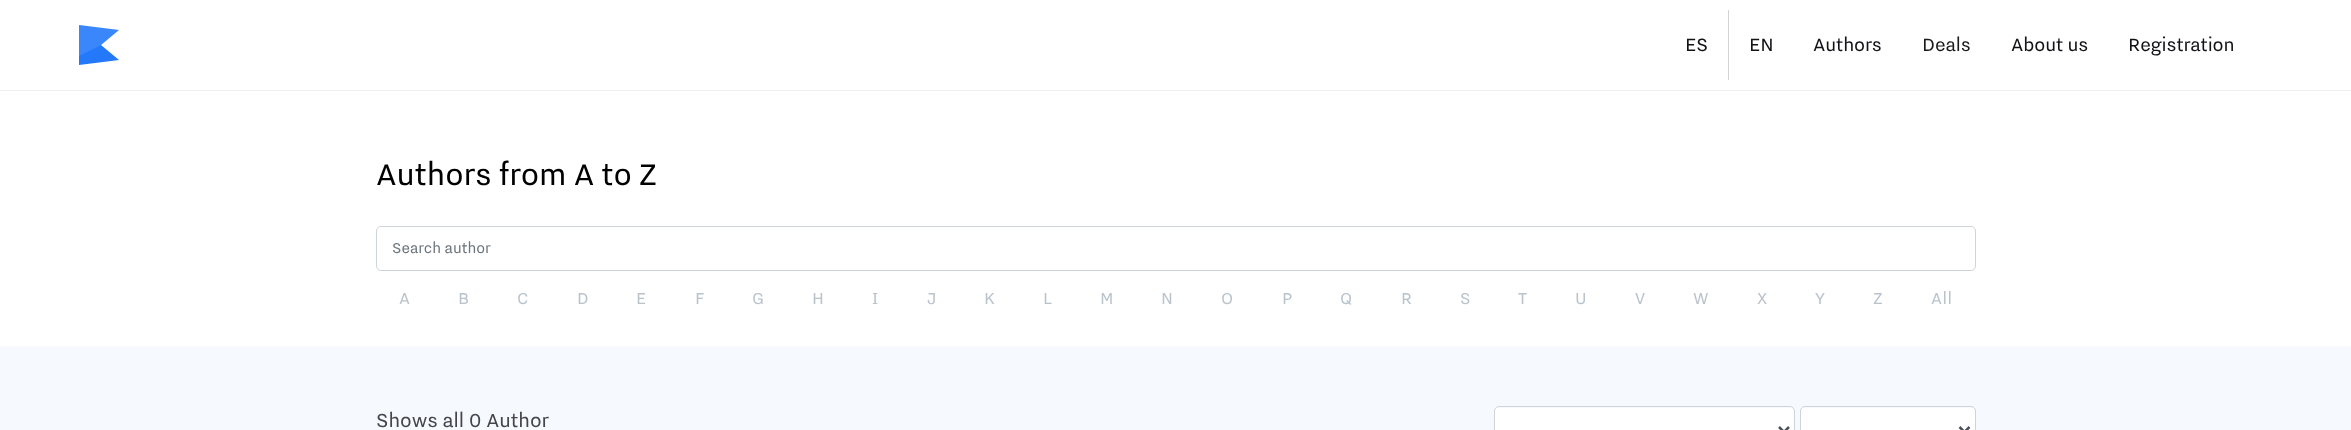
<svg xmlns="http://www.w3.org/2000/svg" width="2351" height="430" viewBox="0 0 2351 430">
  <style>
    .t1 { font: 22.5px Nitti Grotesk; letter-spacing: -0.1px; fill: #121217; }
    .t2 { font: 22.5px Nitti Grotesk; letter-spacing: -0.1px; fill: #1a1a1a; }
    .t3 { font: 37.5px Nitti Grotesk; fill: #000; }
    .t4 { font: 18px Nitti Grotesk; fill: #6c757d; }
    .t5 { font: 20px Nitti Grotesk; letter-spacing: 0.5px; fill: #bac3cc; }
    .t6 { font: 23.75px Nitti Grotesk; fill: #45454a; }
  </style>
  <rect width="100%" height="100%" fill="#fff"/>
  <rect x="0" y="90" width="2351" height="1" fill="#edf0f2"/>
  <path d="M79 25L119 30L101 45L119 60L79 65Z" fill="#2479fb" fill-rule="evenodd"/>
  <path d="M79 56V25L119 30L101 45Z" fill="#ffffff1a" fill-rule="evenodd"/>
  <rect x="1728" y="10" width="1" height="70" fill="#d3d3d3"/>
  <text x="1685" y="51" class="t1">ES</text>
  <text x="1749" y="51" class="t1">EN</text>
  <text x="1813" y="51" class="t1">Authors</text>
  <text x="1922" y="51" class="t2">Deals</text>
  <text x="2011" y="51" class="t1">About us</text>
  <text x="2128" y="51" class="t1">Registration</text>
  <text x="376" y="185" class="t3">Authors from A to Z</text>
  <rect x="376.5" y="226.5" width="1599" height="44" rx="4.5" fill="none" stroke="#ced4da"/>
  <text x="392" y="253" class="t4">Search author</text>
  <text x="399" y="304" class="t5">A</text>
  <text x="458" y="304" class="t5">B</text>
  <text x="517" y="304" class="t5">C</text>
  <text x="577" y="304" class="t5">D</text>
  <text x="636" y="304" class="t5">E</text>
  <text x="695" y="304" class="t5">F</text>
  <text x="752" y="304" class="t5">G</text>
  <text x="812" y="304" class="t5">H</text>
  <text x="872" y="304" class="t5">I</text>
  <text x="927" y="304" class="t5">J</text>
  <text x="984" y="304" class="t5">K</text>
  <text x="1043" y="304" class="t5">L</text>
  <text x="1100" y="304" class="t5">M</text>
  <text x="1161" y="304" class="t5">N</text>
  <text x="1221" y="304" class="t5">O</text>
  <text x="1282" y="304" class="t5">P</text>
  <text x="1340" y="304" class="t5">Q</text>
  <text x="1401" y="304" class="t5">R</text>
  <text x="1460" y="304" class="t5">S</text>
  <text x="1518" y="304" class="t5">T</text>
  <text x="1575" y="304" class="t5">U</text>
  <text x="1635" y="304" class="t5">V</text>
  <text x="1693" y="304" class="t5">W</text>
  <text x="1757" y="304" class="t5">X</text>
  <text x="1815" y="304" class="t5">Y</text>
  <text x="1873" y="304" class="t5">Z</text>
  <text x="1931" y="304" class="t5">All</text>
  <rect x="0" y="346" width="2351" height="84" fill="#f6faff"/>
  <text x="376" y="427" class="t6">Shows all 0 Author</text>
  <rect x="1495" y="408" width="299" height="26" rx="4" fill="#fff"/>
  <rect x="1494.5" y="406.5" width="300" height="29" rx="4.5" fill="none" stroke="#ced4da"/>
  <path d="M1779 427L1784 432L1789 427" fill="none" stroke="#495057" stroke-width="2.5"/>
  <rect x="1801" y="408" width="174" height="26" rx="4" fill="#fff"/>
  <rect x="1800.5" y="406.5" width="175" height="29" rx="4.5" fill="none" stroke="#ced4da"/>
  <path d="M1959.5 427L1964.5 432L1969.5 427" fill="none" stroke="#495057" stroke-width="2.5"/>
</svg>
